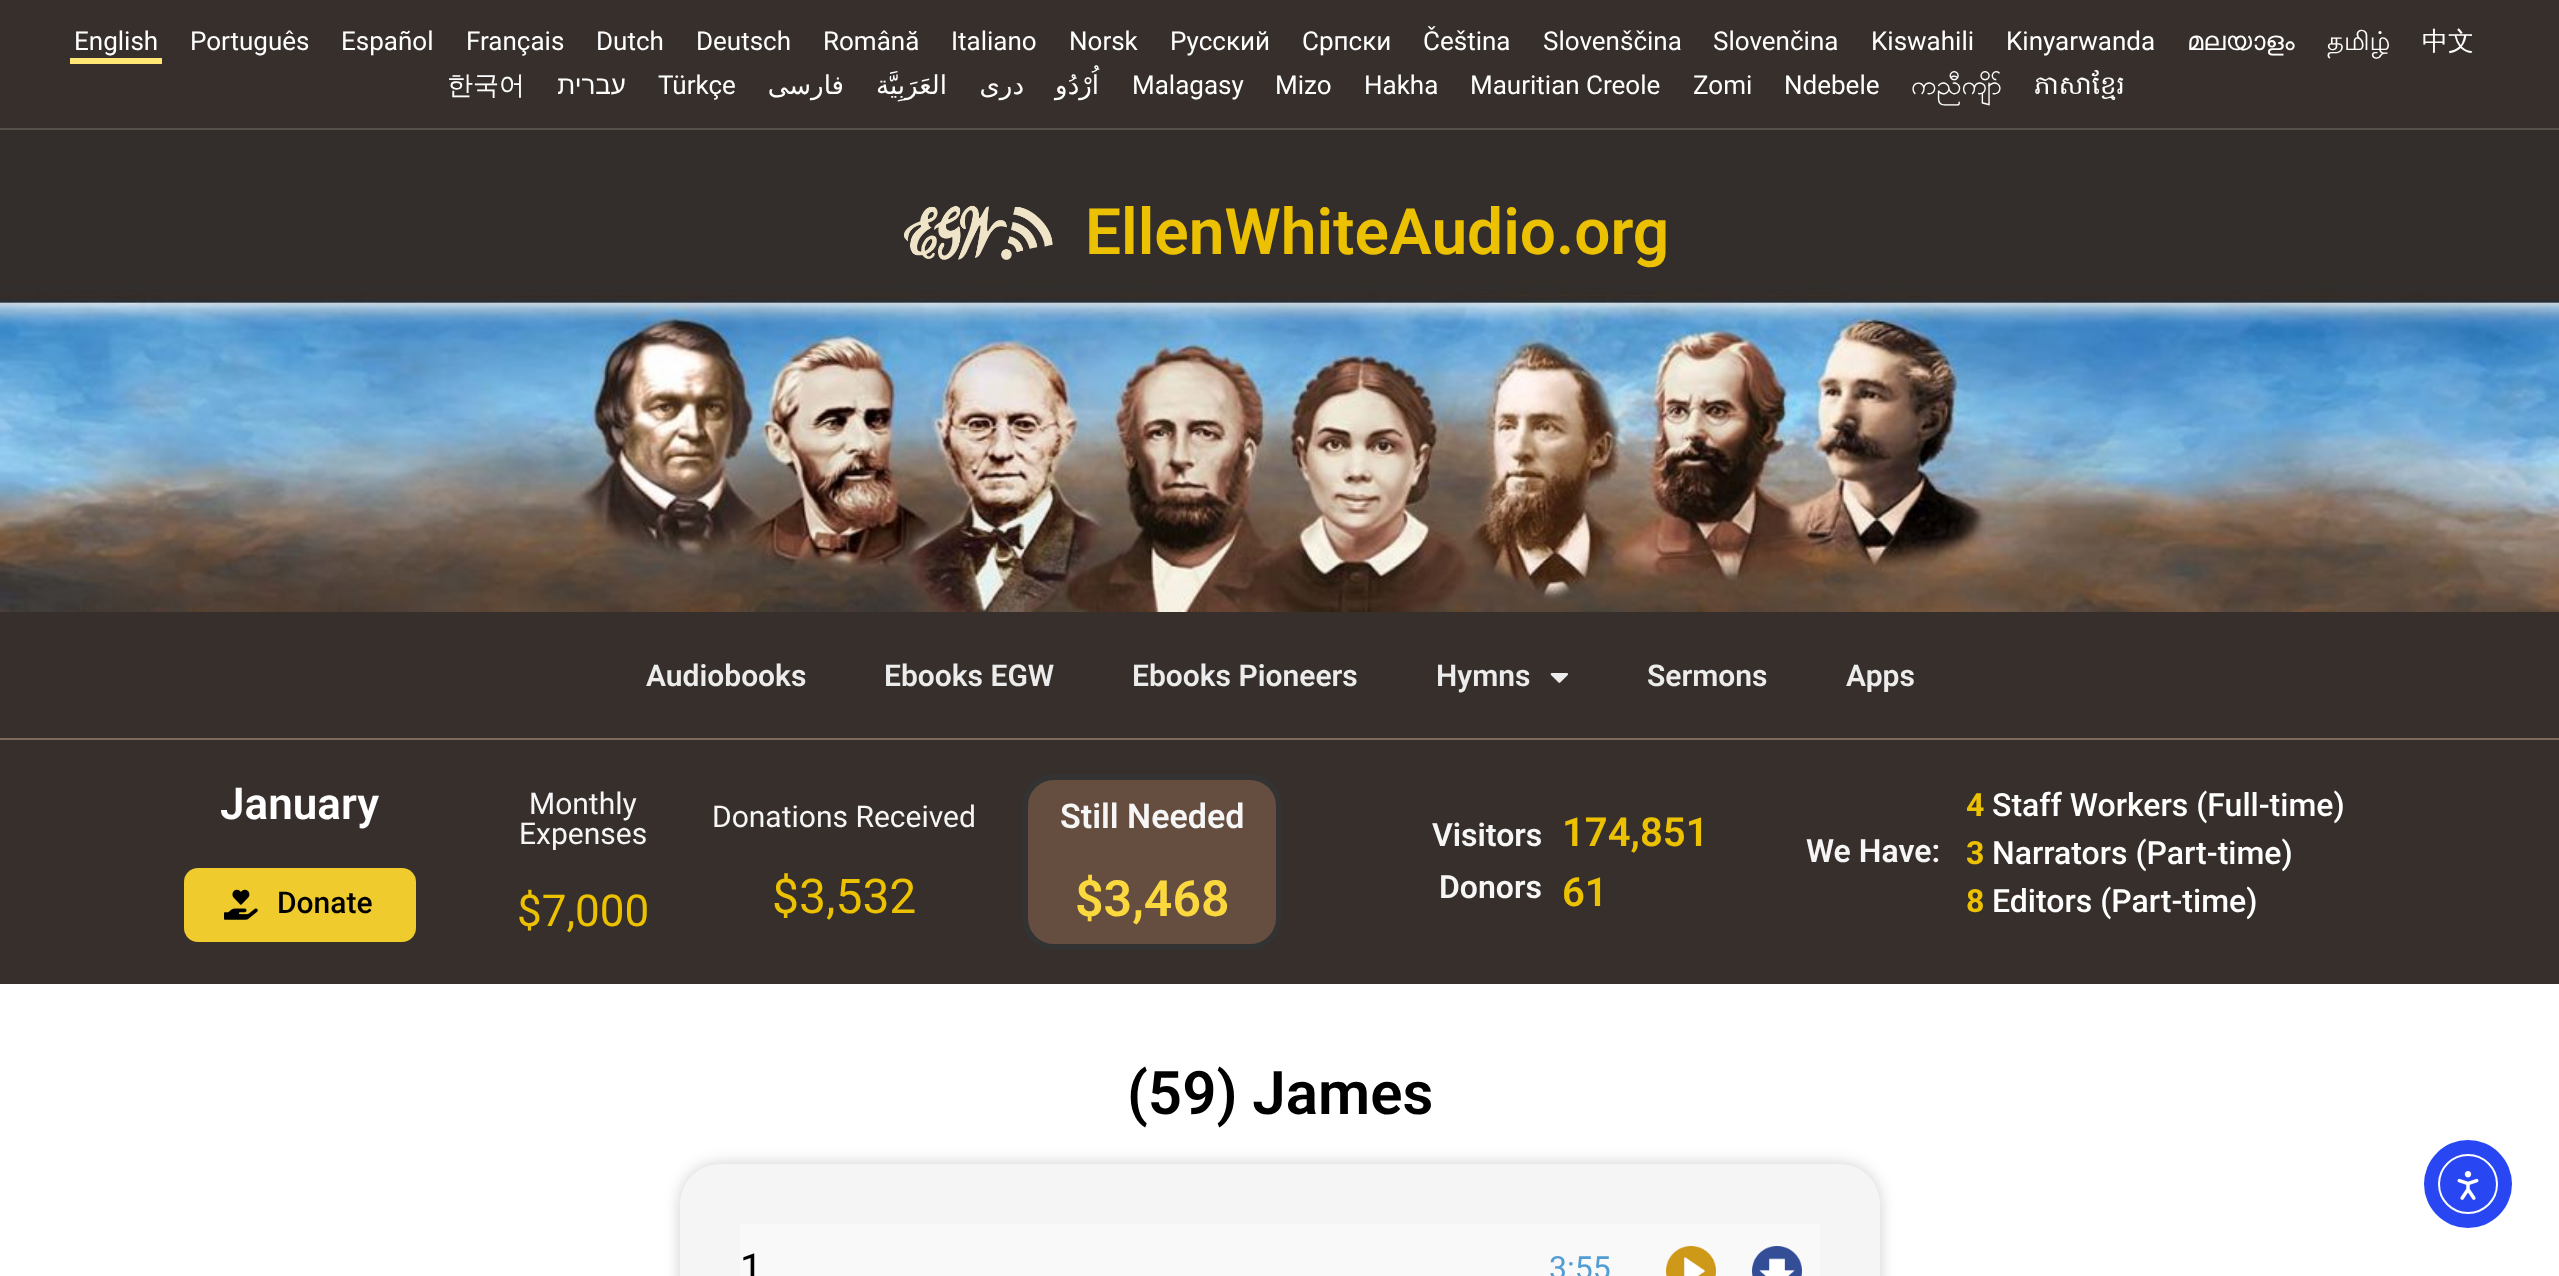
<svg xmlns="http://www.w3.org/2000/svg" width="2559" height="1276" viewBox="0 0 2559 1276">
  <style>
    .t1 { font: 26px Roboto; fill: #fff; }
    .t2 { font: 26px FreeSans; fill: #fff; }
    .t3 { font: 26px Lohit Tamil; fill: #fff; }
    .t4 { font: 500 26px WenQuanYi Zen Hei; fill: #fff; }
    .t5 { font: 26px Liberation Sans; direction: rtl; fill: #fff; }
    .t6 { font: 26px DejaVu Sans; direction: rtl; fill: #fff; }
    .t7 { font: 26px Padauk; fill: #fff; }
    .t8 { font: 26px Hanuman; fill: #fff; }
    .t9 { font: 600 64px Roboto; fill: #ecc101; }
    .t10 { font: 600 30px Roboto; fill: #ececec; }
    .t11 { font: 600 44px Roboto; fill: #fff; }
    .t12 { font: 500 30px Roboto; fill: #000; }
    .t13 { font: 30px Roboto; fill: #f6f6f6; }
    .t14 { font: 44px Roboto; fill: #ecc101; }
    .t15 { font: 48px Roboto; fill: #ecc101; }
    .t16 { font: 600 34px Roboto; fill: #f6f6f6; }
    .t17 { font: 600 50px Roboto; fill: #fbd93e; }
    .t18 { font: 600 32px Roboto; fill: #f6f6f6; }
    .t19 { font: 600 40px Roboto; fill: #ecc101; }
    .t20 { font: bold 32px Roboto; fill: #ecc101; }
    .t21 { font: 500 32px Roboto; fill: #fff; }
    .t22 { font: 600 60px Roboto; fill: #000; }
    .t23 { font: 40px Roboto; fill: #000; }
    .t24 { font: 32px Roboto; fill: #519dd4; }
  </style>
  <rect width="100%" height="100%" fill="#fff"/>
  <rect x="0" y="0" width="2559" height="128" fill="#362f2b"/>
  <rect x="0" y="128" width="2559" height="2" fill="#57504b"/>
  <text x="74" y="50" class="t1">English</text>
  <rect x="70" y="58" width="92" height="6" fill="#ffe675"/>
  <text x="190" y="50" class="t1">Português</text>
  <text x="341" y="50" class="t1">Español</text>
  <text x="466" y="50" class="t1">Français</text>
  <text x="596" y="50" class="t1">Dutch</text>
  <text x="696" y="50" class="t1">Deutsch</text>
  <text x="823" y="50" class="t1">Română</text>
  <text x="951" y="50" class="t1">Italiano</text>
  <text x="1069" y="50" class="t1">Norsk</text>
  <text x="1170" y="50" class="t1">Русский</text>
  <text x="1302" y="50" class="t1">Cрпски</text>
  <text x="1423" y="50" class="t1">Čeština</text>
  <text x="1543" y="50" class="t1">Slovenščina</text>
  <text x="1713" y="50" class="t1">Slovenčina</text>
  <text x="1871" y="50" class="t1">Kiswahili</text>
  <text x="2006" y="50" class="t1">Kinyarwanda</text>
  <text x="2187" y="50" class="t2">മലയാളം</text>
  <text x="2327" y="50" class="t3">தமிழ்</text>
  <text x="2422" y="50" class="t4">中文</text>
  <text x="447" y="94" class="t4">한국어</text>
  <text x="626" y="94" class="t5">עברית</text>
  <text x="658" y="94" class="t1">Türkçe</text>
  <text x="844" y="94" class="t6">فارسی</text>
  <text x="947" y="94" class="t6">العَرَبِيَّة</text>
  <text x="1024" y="94" class="t6">دری</text>
  <text x="1099" y="94" class="t6">اُرْدُو</text>
  <text x="1132" y="94" class="t1">Malagasy</text>
  <text x="1275" y="94" class="t1">Mizo</text>
  <text x="1364" y="94" class="t1">Hakha</text>
  <text x="1470" y="94" class="t1">Mauritian Creole</text>
  <text x="1693" y="94" class="t1">Zomi</text>
  <text x="1784" y="94" class="t1">Ndebele</text>
  <text x="1911" y="94" class="t7">ကညီကျိာ်</text>
  <text x="2034" y="94" class="t8">ភាសាខ្មែរ</text>
  <image x="0" y="130" width="2559" height="482" href="images/1.png"/>
  <image x="904" y="205" width="149" height="55" href="images/2.png"/>
  <text x="1085" y="254" class="t9">EllenWhiteAudio.org</text>
  <rect x="0" y="612" width="2559" height="126" fill="#362f2b"/>
  <text x="646" y="686" class="t10">Audiobooks</text>
  <text x="884" y="686" class="t10">Ebooks EGW</text>
  <text x="1132" y="686" class="t10">Ebooks Pioneers</text>
  <text x="1436" y="686" class="t10">Hymns</text>
  <image x="1550" y="673" width="19" height="10" href="images/3.png"/>
  <text x="1647" y="686" class="t10">Sermons</text>
  <text x="1846" y="686" class="t10">Apps</text>
  <rect x="0" y="740" width="2559" height="244" fill="#362f2b"/>
  <rect x="0" y="738" width="2559" height="2" fill="#7e6b60"/>
  <text x="220" y="819" class="t11">January</text>
  <rect x="184" y="868" width="232" height="74" rx="14" fill="#efcb2d"/>
  <image x="224" y="889" width="34" height="31" href="images/4.png"/>
  <text x="277" y="913" class="t12">Donate</text>
  <text x="529" y="814" class="t13">Monthly</text>
  <text x="519" y="844" class="t13">Expenses</text>
  <text x="517" y="926" class="t14">$7,000</text>
  <text x="712" y="827" class="t13">Donations Received</text>
  <text x="772" y="913" class="t15">$3,532</text>
  <rect x="1025" y="777" width="254" height="170" rx="29" fill="#654d40" stroke="#333" stroke-width="6"/>
  <text x="1060" y="828" class="t16">Still Needed</text>
  <text x="1075" y="916" class="t17">$3,468</text>
  <text x="1432" y="846" class="t18">Visitors</text>
  <text x="1439" y="898" class="t18">Donors</text>
  <text x="1562" y="846" class="t19">174,851</text>
  <text x="1562" y="906" class="t19">61</text>
  <text x="1806" y="862" class="t18">We Have:</text>
  <text x="1966" y="816" class="t20">4</text>
  <text x="1992" y="816" class="t21">Staff Workers (Full-time)</text>
  <text x="1966" y="864" class="t20">3</text>
  <text x="1992" y="864" class="t21">Narrators (Part-time)</text>
  <text x="1966" y="912" class="t20">8</text>
  <text x="1992" y="912" class="t21">Editors (Part-time)</text>
  <text x="1127" y="1114" class="t22">(59) James</text>
  <rect x="680" y="1164" width="1200" height="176" rx="40" fill="#00000030" filter="blur(8px)"/>
  <rect x="680" y="1164" width="1200" height="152" rx="40" fill="#f5f5f5"/>
  <rect x="740" y="1224" width="1080" height="52" fill="#f9f9f9"/>
  <text x="740" y="1282" class="t23">1</text>
  <text x="1549" y="1279" class="t24">3:55</text>
  <image x="1666" y="1246" width="50" height="30" href="images/5.png"/>
  <image x="1752" y="1246" width="50" height="30" href="images/6.png"/>
  <circle cx="2468" cy="1184" r="44" fill="#2847f3"/>
  <circle cx="2468" cy="1184" r="29" fill="none" stroke="#fff" stroke-width="2"/>
  <image x="2457" y="1171" width="22" height="29" href="images/7.png"/>
</svg>
